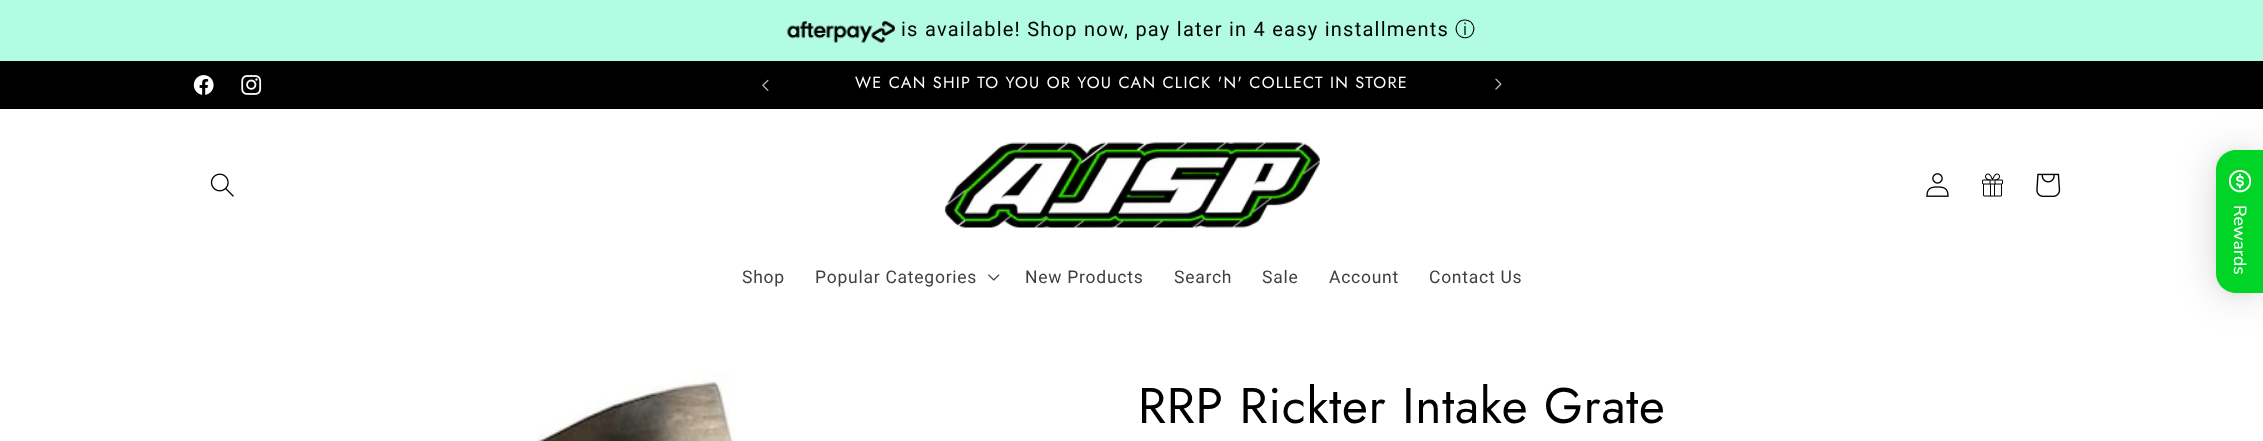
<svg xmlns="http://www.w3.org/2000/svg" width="2263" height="441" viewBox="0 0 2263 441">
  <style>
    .t1 { font: 20px Roboto; letter-spacing: 1.25px; fill: #000; }
    .t2 { font: 500 20px WenQuanYi Zen Hei; letter-spacing: 1.25px; fill: #000; }
    .t3 { font: 16.25px Jost; letter-spacing: 1.25px; fill: #fff; }
    .t4 { font: 500 17.5px Nunito; fill: #fff; }
    .t5 { font: 17.5px Roboto; letter-spacing: 0.75px; fill: #404040; }
    .t6 { font: 50px Jost; letter-spacing: 0.75px; fill: #000; }
  </style>
  <rect width="100%" height="100%" fill="#fff"/>
  <rect x="0" y="0" width="2263" height="61" fill="#b2fce4"/>
  <image x="787" y="21" width="108" height="22" href="images/1.png"/>
  <text x="901" y="36" class="t1">is available! Shop now, pay later in 4 easy installments</text>
  <text x="1455" y="36" class="t2">ⓘ</text>
  <rect x="0" y="61" width="2263" height="48" fill="#000"/>
  <image x="193" y="75" width="21" height="20" href="images/2.png"/>
  <image x="241" y="75" width="21" height="20" href="images/3.png"/>
  <image x="762" y="79" width="7" height="12" href="images/4.png"/>
  <text x="855" y="88" class="t3">WE CAN SHIP TO YOU OR YOU CAN CLICK 'N' COLLECT IN STORE</text>
  <image x="1495" y="78" width="7" height="12" href="images/5.png"/>
  <rect x="2216" y="153" width="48" height="142" rx="20" fill="#00000029" filter="blur(20px)"/>
  <rect x="2216" y="151" width="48" height="143" rx="20" fill="#0000000f" filter="blur(4px)"/>
  <path d="M2236 150H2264V293H2236C2225 293 2216 284 2216 273V170C2216 159 2225 150 2236 150Z" fill="#00d427"/>
  <image x="2229" y="170" width="22" height="23" href="images/6.png"/>
  <text x="2234" y="205" transform="rotate(90 2234 205)" class="t4">Rewards</text>
  <image x="210" y="173" width="24" height="24" href="images/7.png"/>
  <image x="944" y="142" width="376" height="86" href="images/8.png"/>
  <image x="1926" y="173" width="23" height="24" href="images/9.png"/>
  <image x="1982" y="173" width="21" height="24" href="images/10.png"/>
  <image x="2036" y="173" width="25" height="24" href="images/11.png"/>
  <text x="742" y="283" class="t5">Shop</text>
  <text x="815" y="283" class="t5">Popular Categories</text>
  <image x="988" y="274" width="12" height="7" href="images/12.png"/>
  <text x="1025" y="283" class="t5">New Products</text>
  <text x="1174" y="283" class="t5">Search</text>
  <text x="1262" y="283" class="t5">Sale</text>
  <text x="1329" y="283" class="t5">Account</text>
  <text x="1429" y="283" class="t5">Contact Us</text>
  <image x="536" y="373" width="199" height="68" href="images/13.png"/>
  <text x="1138" y="423" class="t6">RRP Rickter Intake Grate</text>
</svg>
